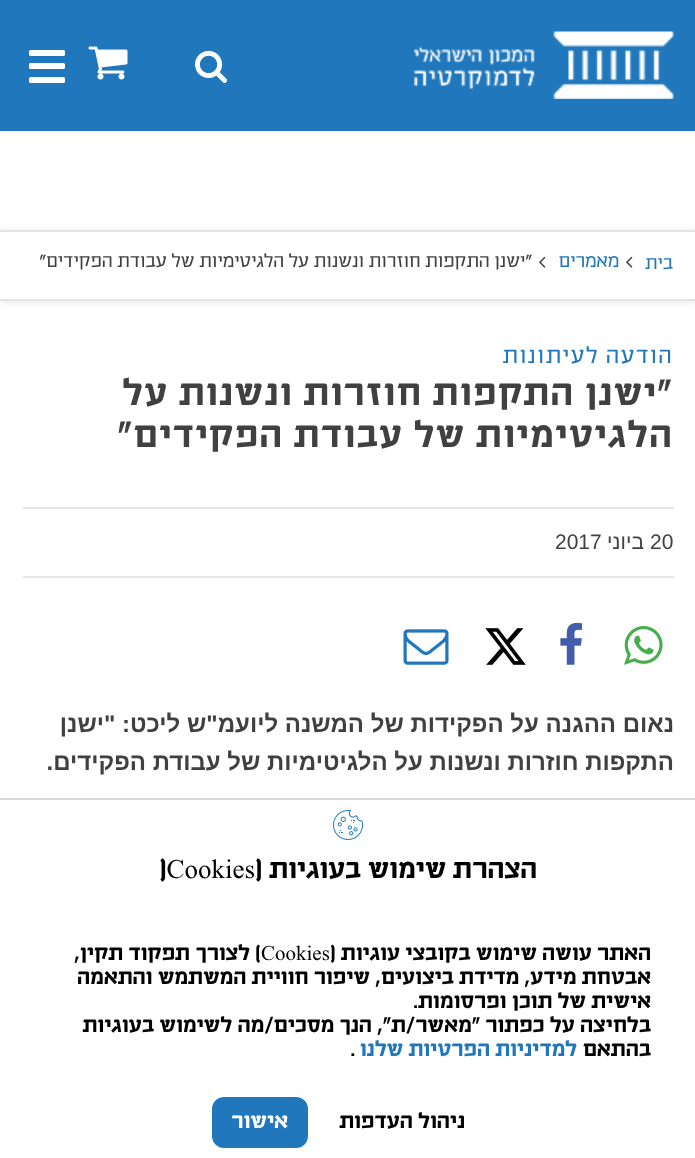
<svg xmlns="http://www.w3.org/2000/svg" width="695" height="1158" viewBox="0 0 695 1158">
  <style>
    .t1 { font: 200 19.5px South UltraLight; direction: rtl; fill: #2077bc; }
    .t2 { font: 200 19.5px South UltraLight; direction: rtl; fill: #404041; }
    .t3 { font: 200 24px South UltraLight; letter-spacing: 1.5px; direction: rtl; fill: #2077bc; }
    .t4 { font: 36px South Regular; letter-spacing: 1.5px; direction: rtl; fill: #404041; }
    .t5 { font: 21px Liberation Sans; fill: #404041; }
    .t6 { font: 21px Liberation Sans; direction: rtl; fill: #404041; }
    .t7 { font: bold 24px Liberation Sans; direction: rtl; fill: #404041; }
    .t8 { font: 27px South Regular; direction: rtl; fill: #000; }
    .t9 { font: 27px South Regular; fill: #000; }
    .t10 { font: 21px South Regular; direction: rtl; fill: #000; }
    .t11 { font: 21px South Regular; fill: #000; }
    .t12 { font: 21px South Regular; direction: rtl; fill: #2077bc; }
    .t13 { font: 21px South Regular; direction: rtl; fill: #fff; }
  </style>
  <defs>
    <clipPath id="clip1"><path d="M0 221H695V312H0ZM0 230H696V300H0Z" clip-rule="evenodd"/></clipPath>
  </defs>
  <rect width="100%" height="100%" fill="#fff"/>
  <rect x="0" y="0" width="695" height="131" fill="#2077bc"/>
  <image x="414" y="31" width="260" height="68" href="images/1.png"/>
  <image x="195" y="50" width="32" height="33" href="images/2.png"/>
  <image x="88" y="46" width="40" height="34" href="images/3.png"/>
  <rect x="29" y="50" width="36" height="6" rx="1.5" fill="#fff"/>
  <rect x="29" y="63" width="36" height="6" rx="1.5" fill="#fff"/>
  <rect x="29" y="77" width="36" height="6" rx="1.5" fill="#fff"/>
  <g clip-path="url(#clip1)">
    <rect x="0" y="231" width="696" height="71" fill="#0000001a" filter="blur(3px)"/>
  </g>
  <rect x="0" y="230" width="695" height="2" fill="#e4e4e5"/>
  <rect x="0" y="299" width="695" height="2" fill="#e4e4e5"/>
  <text x="673" y="269" class="t1">בית</text>
  <image x="626" y="256" width="7" height="12" href="images/4.png"/>
  <text x="619" y="267" class="t1">מאמרים</text>
  <image x="539" y="256" width="7" height="12" href="images/4.png"/>
  <text x="532" y="267" class="t2">״ישנן התקפות חוזרות ונשנות על הלגיטימיות של עבודת הפקידים״</text>
  <text x="673" y="363" class="t3">הודעה לעיתונות</text>
  <text x="673" y="405" class="t4">״ישנן התקפות חוזרות ונשנות על</text>
  <text x="673" y="447" class="t4">הלגיטימיות של עבודת הפקידים״</text>
  <rect x="23" y="507" width="651" height="2" fill="#e5e5e5"/>
  <rect x="23" y="576" width="651" height="2" fill="#e5e5e5"/>
  <text x="650" y="549" class="t5">20</text>
  <text x="644" y="549" class="t6">ביוני</text>
  <text x="555" y="549" class="t5">2017</text>
  <image x="624" y="626" width="39" height="39" href="images/5.png"/>
  <image x="560" y="622" width="23" height="43" href="images/6.png"/>
  <image x="485" y="628" width="41" height="37" href="images/7.png"/>
  <image x="403" y="629" width="46" height="36" href="images/8.png"/>
  <text x="674" y="732" class="t7">נאום ההגנה על הפקידות של המשנה ליועמ"ש ליכט: "ישנן</text>
  <text x="674" y="770" class="t7">התקפות חוזרות ונשנות על הלגיטימיות של עבודת הפקידים.</text>
  <rect x="0" y="798" width="695" height="2" fill="#00000026"/>
  <image x="333" y="810" width="30" height="30" href="images/9.png"/>
  <text x="537" y="878" class="t8">הצהרת שימוש בעוגיות (</text>
  <text x="159" y="878" class="t9">)Cookies</text>
  <text x="651" y="960" class="t10">האתר עושה שימוש בקובצי עוגיות (</text>
  <text x="261" y="960" class="t11">Cookies</text>
  <text x="261" y="960" class="t10">) לצורך תפקוד תקין,</text>
  <text x="651" y="984" class="t10">אבטחת מידע, מדידת ביצועים, שיפור חוויית המשתמש והתאמה</text>
  <text x="651" y="1008" class="t10">אישית של תוכן ופרסומות.</text>
  <text x="651" y="1032" class="t10">בלחיצה על כפתור "מאשר/ת", הנך מסכים/מה לשימוש בעוגיות</text>
  <text x="651" y="1056" class="t10">בהתאם</text>
  <text x="577" y="1056" class="t12">למדיניות הפרטיות שלנו</text>
  <text x="351" y="1056" class="t11">.</text>
  <text x="465" y="1128" class="t10">ניהול העדפות</text>
  <rect x="212" y="1097" width="96" height="51" rx="12" fill="#2077bc"/>
  <text x="288" y="1128" class="t13">אישור</text>
</svg>
